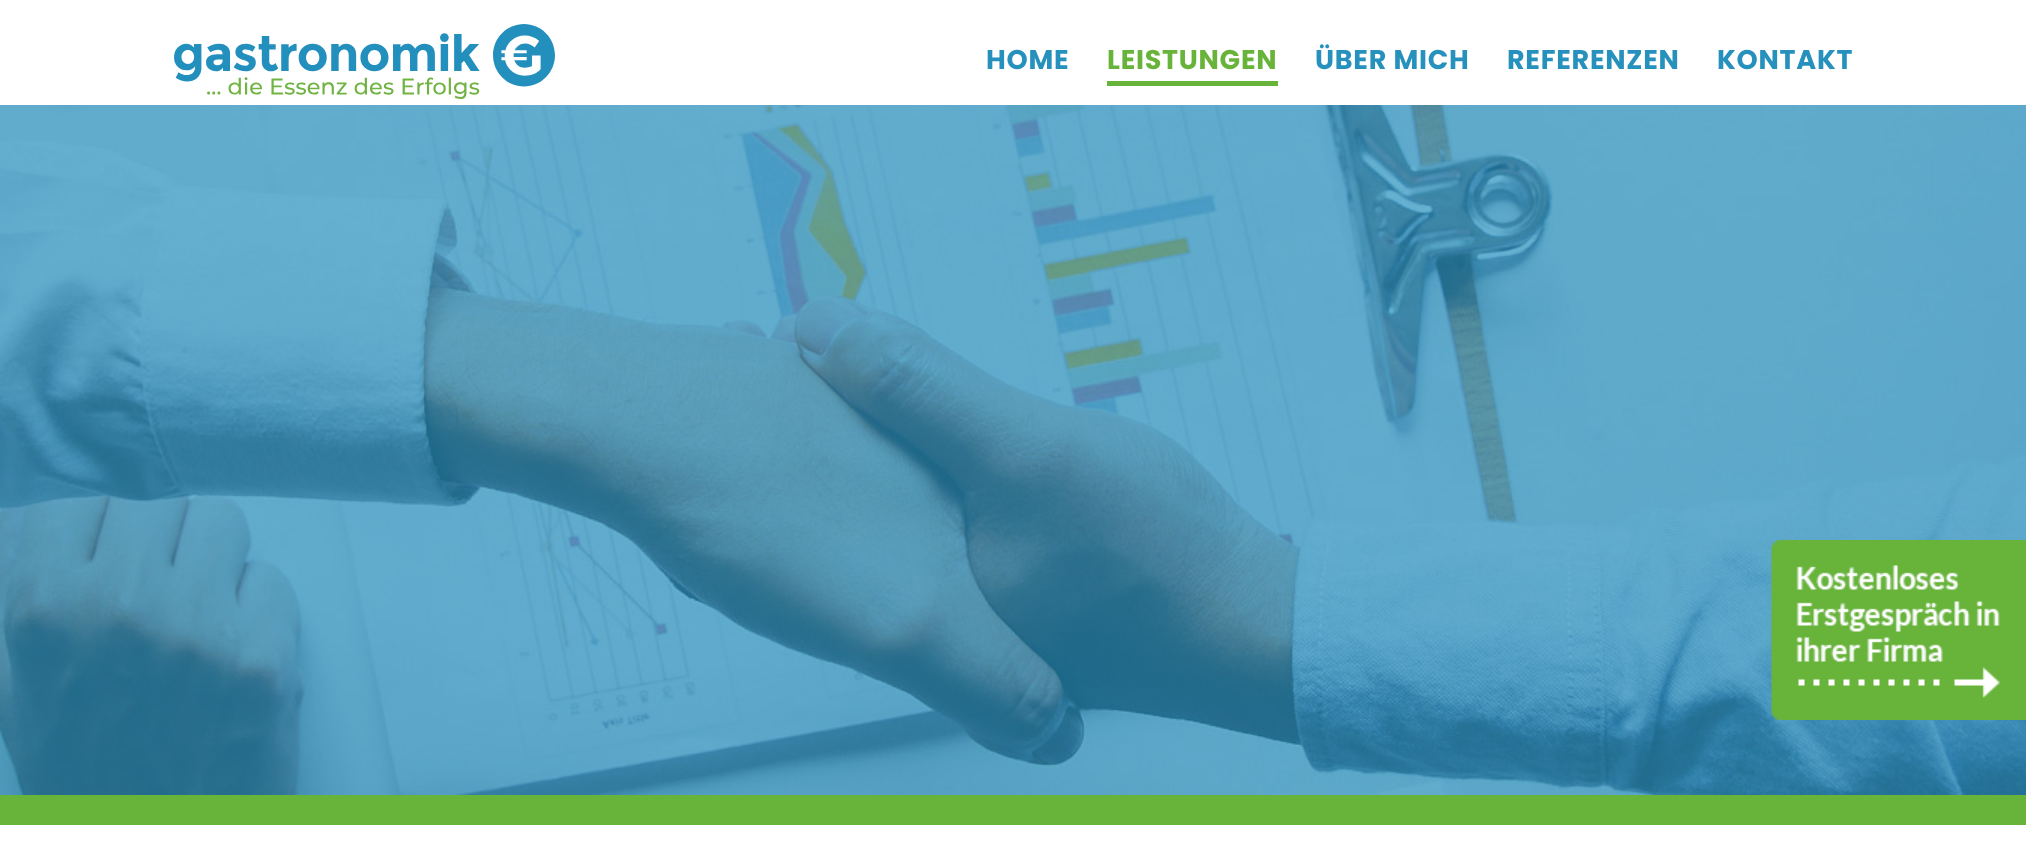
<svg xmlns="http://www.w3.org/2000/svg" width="2026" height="861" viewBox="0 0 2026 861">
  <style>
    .t1 { font: bold 27px Poppins; letter-spacing: 0.75px; fill: #2791be; }
    .t2 { font: bold 27px Poppins; letter-spacing: 0.75px; fill: #68b43b; }
  </style>
  <rect width="100%" height="100%" fill="#fff"/>
  <image x="174" y="24" width="381" height="75" href="images/1.png"/>
  <text x="986" y="69" class="t1">HOME</text>
  <text x="1107" y="69" class="t2">LEISTUNGEN</text>
  <rect x="1107" y="81" width="171" height="5" fill="#68b43b"/>
  <text x="1315" y="69" class="t1">ÜBER MICH</text>
  <text x="1507" y="69" class="t1">REFERENZEN</text>
  <text x="1717" y="69" class="t1">KONTAKT</text>
  <image x="0" y="105" width="2026" height="690" href="images/2.png"/>
  <rect x="0" y="795" width="2026" height="30" fill="#68b43b"/>
  <image x="1771" y="540" width="255" height="180" href="images/3.png"/>
</svg>
